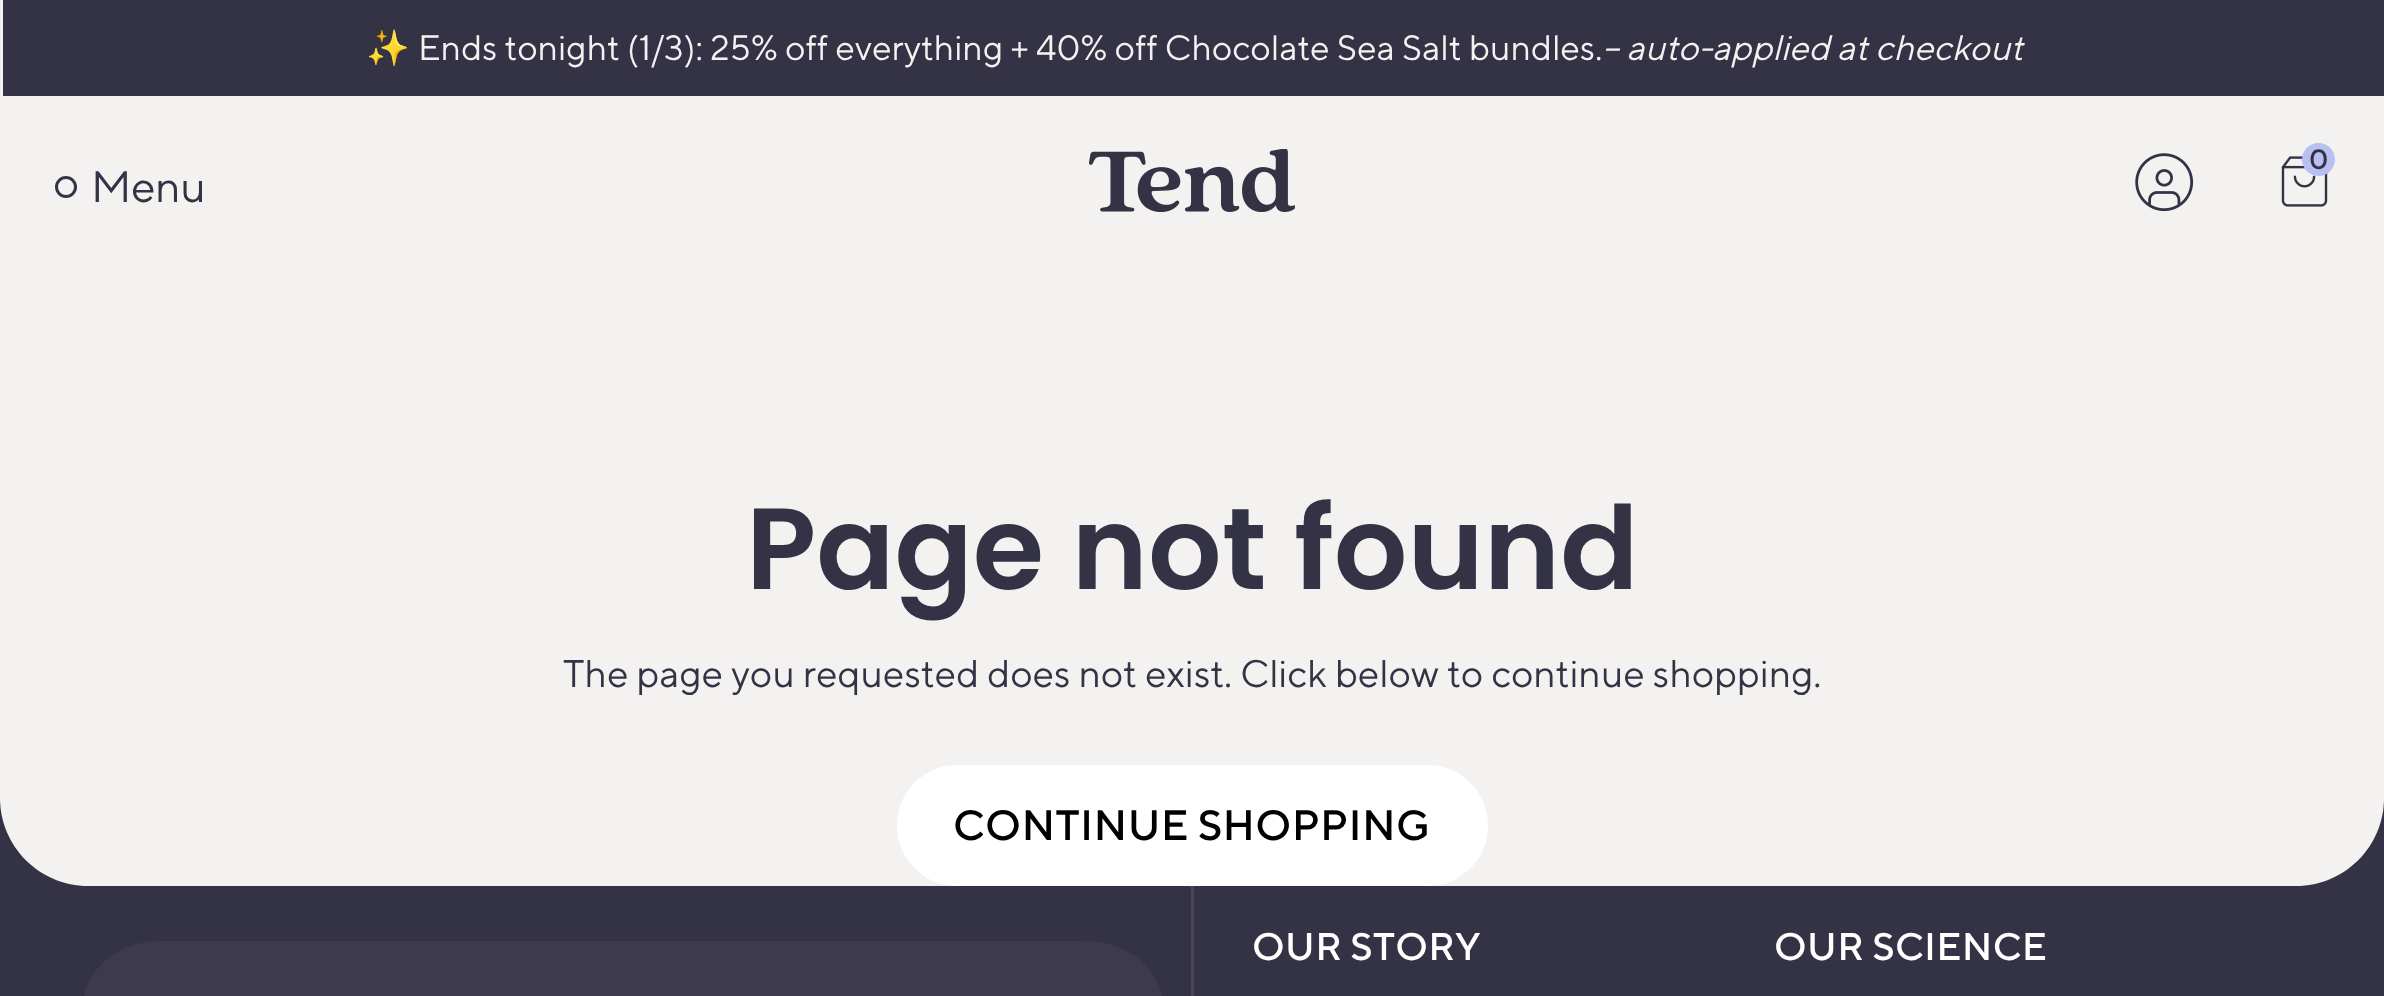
<svg xmlns="http://www.w3.org/2000/svg" width="2384" height="996" viewBox="0 0 2384 996">
  <style>*{font-kerning:none!important;font-variant-ligatures:none!important}</style>
  <style>
    .t1 { font: 35.2px Noto Color Emoji; fill: #f4f2f0; }
    .t2 { font: 35.2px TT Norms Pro; fill: #f4f2f0; }
    .t3 { font: italic 35.2px TT Norms Pro; fill: #f4f2f0; }
    .t4 { font: 44px TT Norms Pro; letter-spacing: -0.5px; fill: #343245; }
    .t5 { font: 500 28px TT Norms Pro; fill: #343245; }
    .t6 { font: 600 115.5px Poppins; fill: #343245; }
    .t7 { font: 38.5px TT Norms Pro; fill: #343245; }
    .t8 { font: 500 42.4px TT Norms Pro; letter-spacing: 0.4px; fill: #000; }
    .t9 { font: 500 38.5px TT Norms Pro; letter-spacing: 0.4px; fill: #fff; }
  </style>
  <rect width="100%" height="100%" fill="#f4f2f0"/>
  <rect x="3" y="0" width="2381" height="96" fill="#343245"/>
  <text x="366" y="60" class="t1">✨</text>
  <text x="418" y="60" class="t2">Ends tonight (1/3): 25% off everything + 40% off Chocolate Sea Salt bundles.</text>
  <text x="1602" y="60" class="t3">– auto-applied at checkout</text>
  <rect x="0" y="798" width="2384" height="198" fill="#343245"/>
  <path d="M0 96H2384V798C2384 846.5 2344.5 886 2296 886H88C39.5 886 0 846.5 0 798Z" fill="#f4f2f0"/>
  <circle cx="66" cy="187" r="9.5" fill="none" stroke="#343245" stroke-width="3"/>
  <text x="91" y="202" class="t4">Menu</text>
  <image x="2135" y="153" width="59" height="59" href="images/1.png"/>
  <image x="2281" y="156" width="47" height="51" href="images/2.png"/>
  <circle cx="2318.5" cy="159.5" r="16.5" fill="#b8c0f2"/>
  <text x="2309" y="169" class="t5">0</text>
  <image x="1089" y="149" width="206" height="63" href="images/3.png"/>
  <text x="746" y="589" class="t6">Page not found</text>
  <text x="563" y="687" class="t7">The page you requested does not exist. Click below to continue shopping.</text>
  <rect x="898.5" y="766.5" width="588" height="118" rx="59" fill="#fff" stroke="#fff" stroke-width="3"/>
  <text x="953" y="840" class="t8">CONTINUE SHOPPING</text>
  <rect x="1191" y="886" width="3" height="110" fill="#474556"/>
  <rect x="83" y="941" width="1080" height="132" rx="77" fill="#3c3a4c"/>
  <text x="1252" y="960" class="t9">OUR STORY</text>
  <text x="1774" y="960" class="t9">OUR SCIENCE</text>
</svg>
